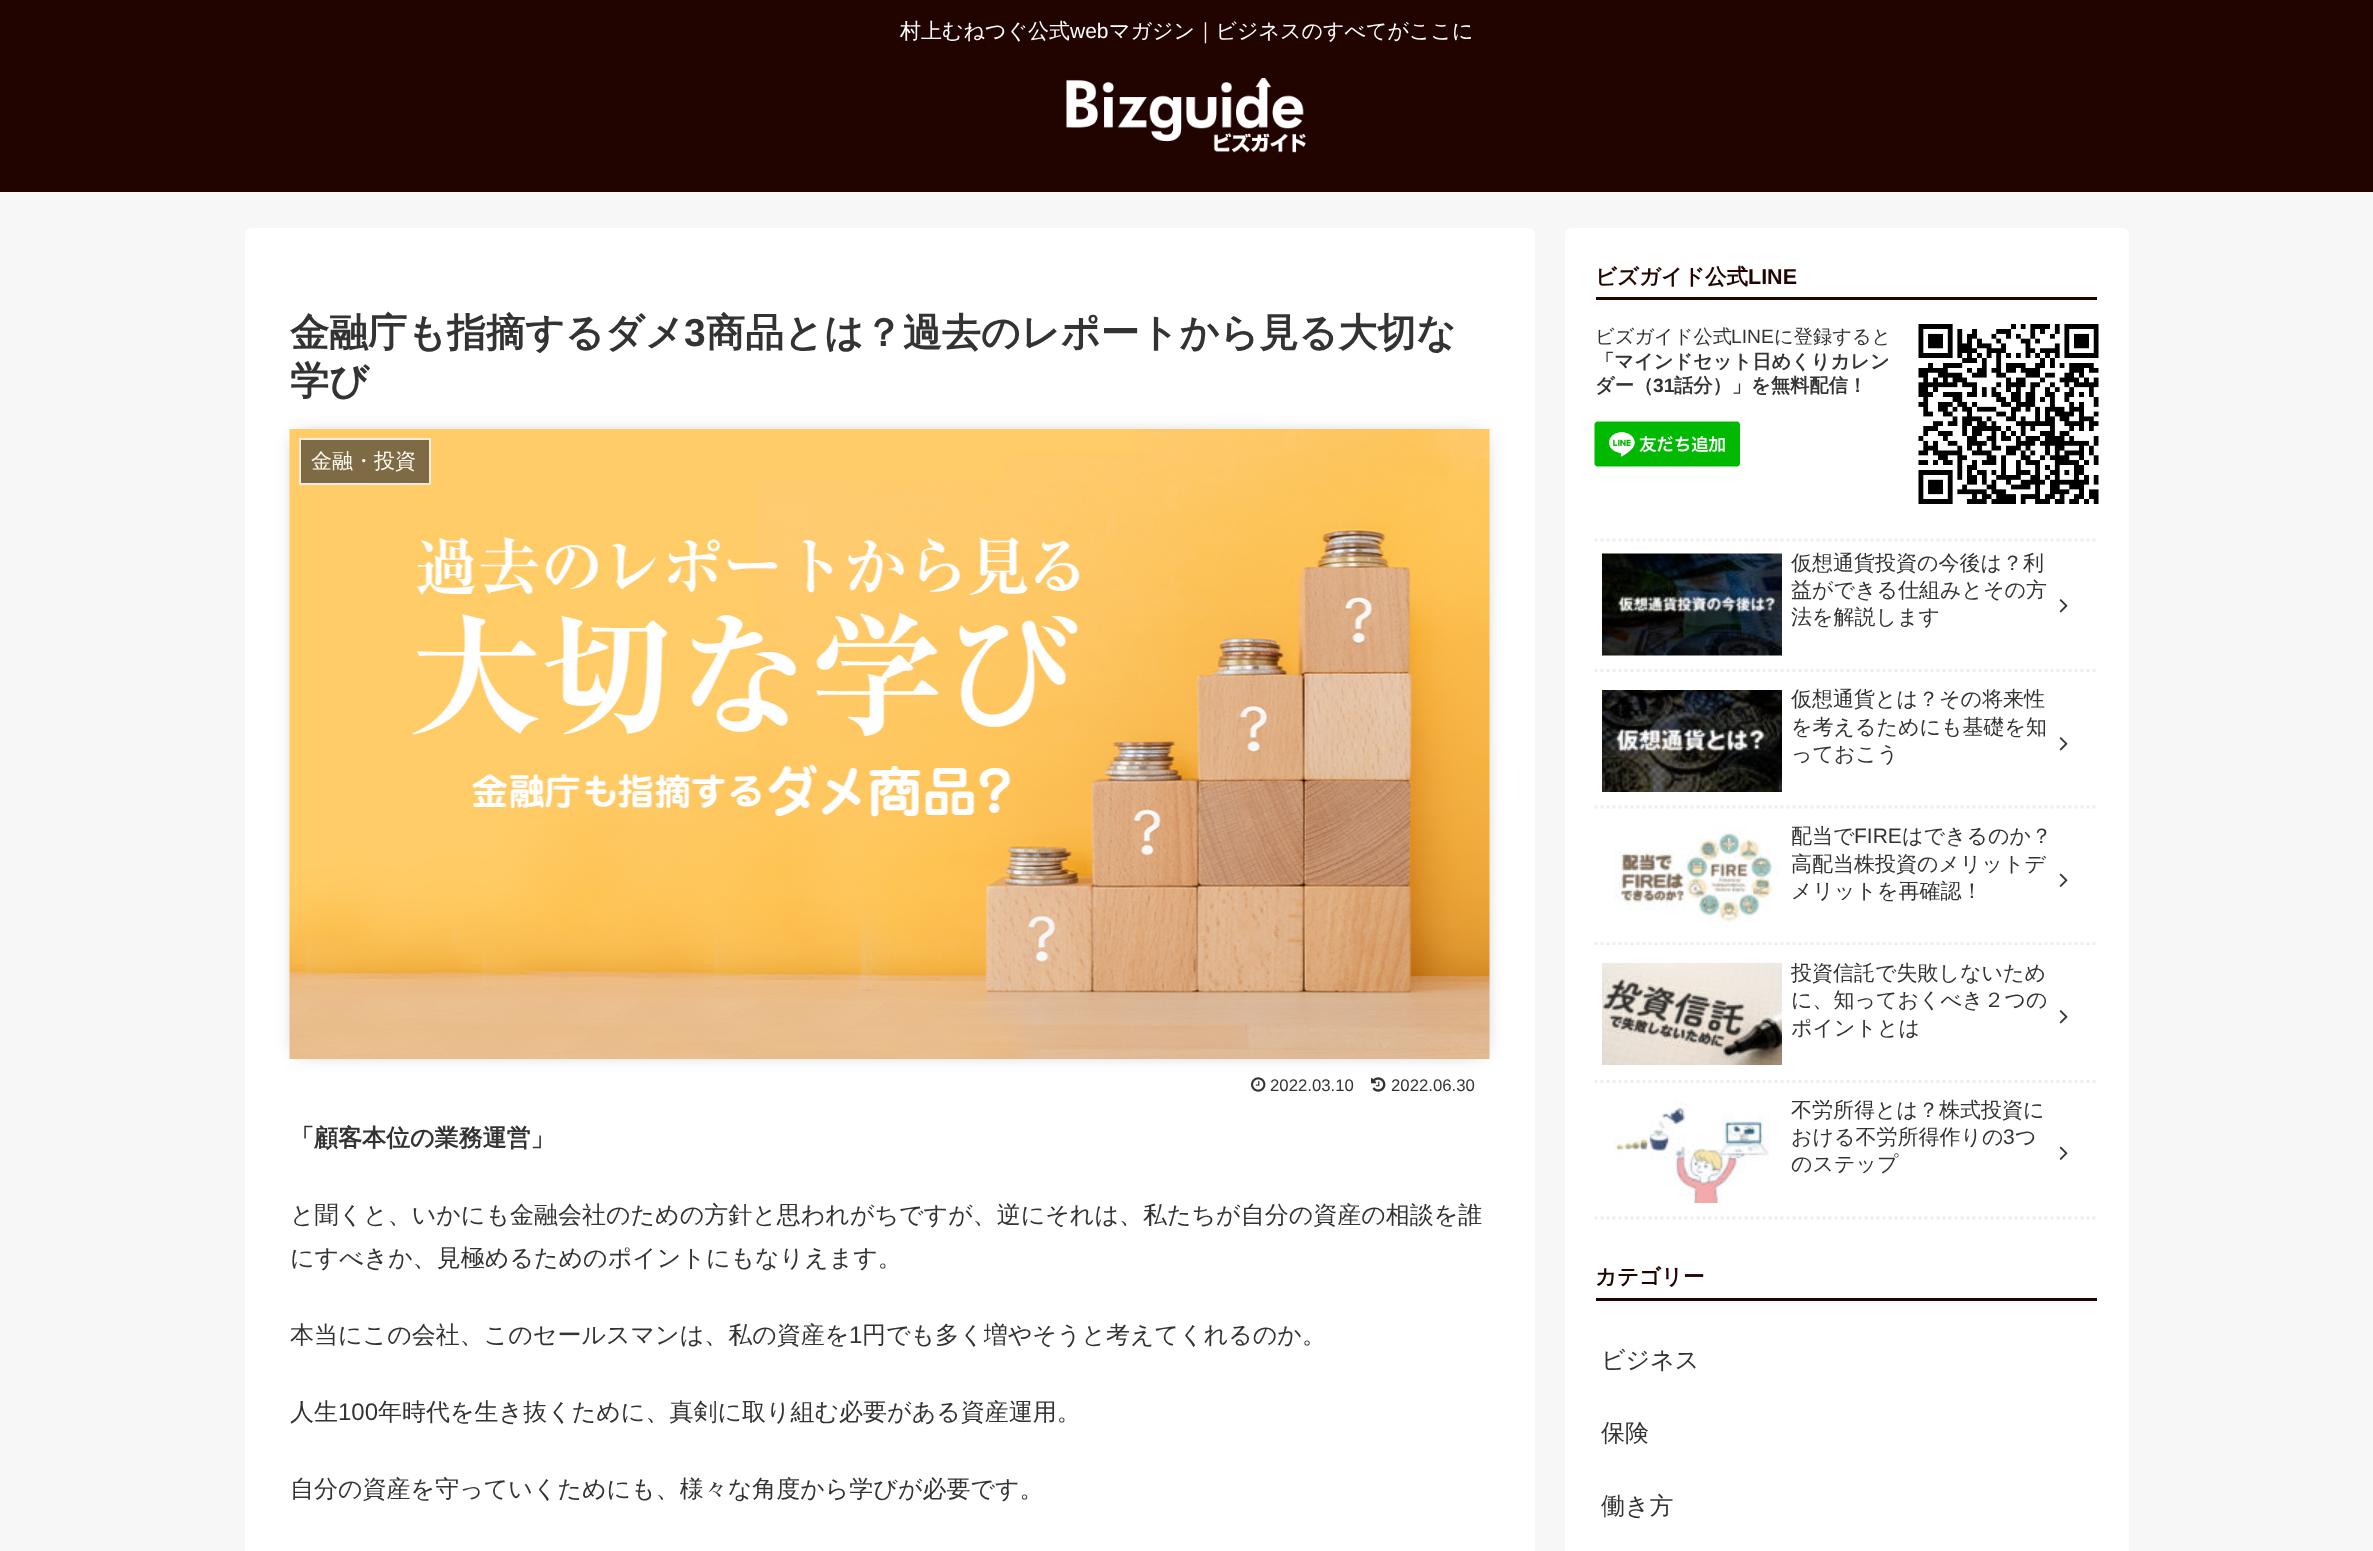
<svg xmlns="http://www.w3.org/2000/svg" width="2373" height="1551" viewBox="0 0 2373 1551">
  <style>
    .t1 { font: 500 21px WenQuanYi Zen Hei; fill: #fff; }
    .t2 { font: 21px Liberation Sans; fill: #fff; }
    .t3 { font: bold 39px WenQuanYi Zen Hei; fill: #333; }
    .t4 { font: bold 39px Liberation Sans; fill: #333; }
    .t5 { font: 500 21px WenQuanYi Zen Hei; fill: #fffaf0; }
    .t6 { font: 16.75px Liberation Sans; fill: #333; }
    .t7 { font: bold 24px WenQuanYi Zen Hei; fill: #333; }
    .t8 { font: 500 24px WenQuanYi Zen Hei; fill: #333; }
    .t9 { font: 24px Liberation Sans; fill: #333; }
    .t10 { font: bold 21.5px WenQuanYi Zen Hei; fill: #210400; }
    .t11 { font: bold 21.5px Liberation Sans; fill: #210400; }
    .t12 { font: 500 19.25px WenQuanYi Zen Hei; fill: #333; }
    .t13 { font: 19.25px Liberation Sans; fill: #333; }
    .t14 { font: bold 19.25px WenQuanYi Zen Hei; fill: #333; }
    .t15 { font: bold 19.25px Liberation Sans; fill: #333; }
    .t16 { font: 500 21px WenQuanYi Zen Hei; fill: #333; }
    .t17 { font: 21px Liberation Sans; fill: #333; }
  </style>
  <rect width="100%" height="100%" fill="#f7f7f7"/>
  <rect x="0" y="0" width="2373" height="192" fill="#210400"/>
  <text x="900" y="38" class="t1">村上むねつぐ公式</text>
  <text x="1070" y="38" class="t2">web</text>
  <text x="1109" y="38" class="t1">マガジン｜ビジネスのすべてがここに</text>
  <image x="1066" y="78" width="240" height="75" href="images/1.png"/>
  <rect x="245" y="228" width="1290" height="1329" rx="6" fill="#fff"/>
  <text x="290" y="346" class="t3">金融庁も指摘するダメ</text>
  <text x="684" y="346" class="t4">3</text>
  <text x="706" y="346" class="t3">商品とは？過去のレポートから見る大切な</text>
  <text x="290" y="394" class="t3">学び</text>
  <image x="1251" y="1077" width="15" height="15" href="images/3.png"/>
  <image x="1371" y="1077" width="15" height="15" href="images/4.png"/>
  <rect x="299" y="438" width="1182" height="612" fill="#00000066" filter="blur(10px)"/>
  <image x="289" y="429" width="1201" height="630" href="images/2.png"/>
  <rect x="300" y="439" width="130" height="45" fill="#7e6b46" stroke="#f0ebe1" stroke-width="2"/>
  <text x="311" y="468" class="t5">金融・投資</text>
  <text x="1270" y="1091" class="t6">2022.03.10</text>
  <text x="1391" y="1091" class="t6">2022.06.30</text>
  <text x="290" y="1146" class="t7">「顧客本位の業務運営」</text>
  <text x="290" y="1223" class="t8">と聞くと、いかにも金融会社のための方針と思われがちですが、逆にそれは、私たちが自分の資産の相談を誰</text>
  <text x="290" y="1266" class="t8">にすべきか、見極めるためのポイントにもなりえます。</text>
  <text x="290" y="1343" class="t8">本当にこの会社、このセールスマンは、私の資産を</text>
  <text x="849" y="1343" class="t9">1</text>
  <text x="862" y="1343" class="t8">円でも多く増やそうと考えてくれるのか。</text>
  <text x="290" y="1420" class="t8">人生</text>
  <text x="338" y="1420" class="t9">100</text>
  <text x="378" y="1420" class="t8">年時代を生き抜くために、真剣に取り組む必要がある資産運用。</text>
  <text x="290" y="1497" class="t8">自分の資産を守っていくためにも、様々な角度から学びが必要です。</text>
  <rect x="1565" y="228" width="564" height="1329" rx="6" fill="#fff"/>
  <rect x="1596" y="297" width="501" height="3" fill="#210400"/>
  <text x="1595" y="284" class="t10">ビズガイド公式</text>
  <text x="1748" y="284" class="t11">LINE</text>
  <text x="1595" y="343" class="t12">ビズガイド公式</text>
  <text x="1731" y="343" class="t13">LINE</text>
  <text x="1774" y="343" class="t12">に登録すると</text>
  <text x="1595" y="368" class="t14">「マインドセット日めくりカレン</text>
  <text x="1595" y="392" class="t14">ダー（</text>
  <text x="1653" y="392" class="t15">31</text>
  <text x="1674" y="392" class="t14">話分）」を無料配信！</text>
  <image x="1918" y="324" width="181" height="180" href="images/5.png"/>
  <image x="1594" y="421" width="146" height="46" href="images/6.png"/>
  <path d="M1594.5 540H2098.5" fill="none" stroke="#eee" stroke-width="3" stroke-dasharray="3 3"/>
  <path d="M1594.5 670.5H2098.5" fill="none" stroke="#eee" stroke-width="3" stroke-dasharray="3 3"/>
  <image x="1602" y="553" width="180" height="103" href="images/7.png"/>
  <text x="1791" y="570" class="t16">仮想通貨投資の今後は？利</text>
  <text x="1791" y="597" class="t16">益ができる仕組みとその方</text>
  <text x="1791" y="624" class="t16">法を解説します</text>
  <image x="2059" y="599" width="9" height="14" href="images/8.png"/>
  <path d="M1594.5 807H2098.5" fill="none" stroke="#eee" stroke-width="3" stroke-dasharray="3 3"/>
  <image x="1602" y="690" width="180" height="102" href="images/9.png"/>
  <text x="1791" y="706" class="t16">仮想通貨とは？その将来性</text>
  <text x="1791" y="734" class="t16">を考えるためにも基礎を知</text>
  <text x="1791" y="761" class="t16">っておこう</text>
  <image x="2059" y="737" width="9" height="14" href="images/8.png"/>
  <path d="M1594.5 943.5H2098.5" fill="none" stroke="#eee" stroke-width="3" stroke-dasharray="3 3"/>
  <image x="1614" y="826" width="165" height="97" href="images/10.png"/>
  <text x="1791" y="843" class="t16">配当で</text>
  <text x="1854" y="843" class="t17">FIRE</text>
  <text x="1902" y="843" class="t16">はできるのか？</text>
  <text x="1791" y="871" class="t16">高配当株投資のメリットデ</text>
  <text x="1791" y="898" class="t16">メリットを再確認！</text>
  <image x="2059" y="873" width="9" height="14" href="images/11.png"/>
  <path d="M1594.5 1081.5H2098.5" fill="none" stroke="#eee" stroke-width="3" stroke-dasharray="3 3"/>
  <image x="1602" y="963" width="180" height="102" href="images/12.png"/>
  <text x="1791" y="980" class="t16">投資信託で失敗しないため</text>
  <text x="1791" y="1007" class="t16">に、知っておくべき２つの</text>
  <text x="1791" y="1035" class="t16">ポイントとは</text>
  <image x="2059" y="1010" width="9" height="14" href="images/8.png"/>
  <path d="M1594.5 1218H2098.5" fill="none" stroke="#eee" stroke-width="3" stroke-dasharray="3 3"/>
  <image x="1614" y="1101" width="156" height="102" href="images/13.png"/>
  <text x="1791" y="1117" class="t16">不労所得とは？株式投資に</text>
  <text x="1791" y="1144" class="t16">おける不労所得作りの</text>
  <text x="2003" y="1144" class="t17">3</text>
  <text x="2015" y="1144" class="t16">つ</text>
  <text x="1791" y="1171" class="t16">のステップ</text>
  <image x="2059" y="1146" width="9" height="14" href="images/11.png"/>
  <rect x="1596" y="1298" width="501" height="3" fill="#210400"/>
  <text x="1595" y="1284" class="t10">カテゴリー</text>
  <text x="1601" y="1368" class="t8">ビジネス</text>
  <text x="1601" y="1441" class="t8">保険</text>
  <text x="1601" y="1514" class="t8">働き方</text>
</svg>
